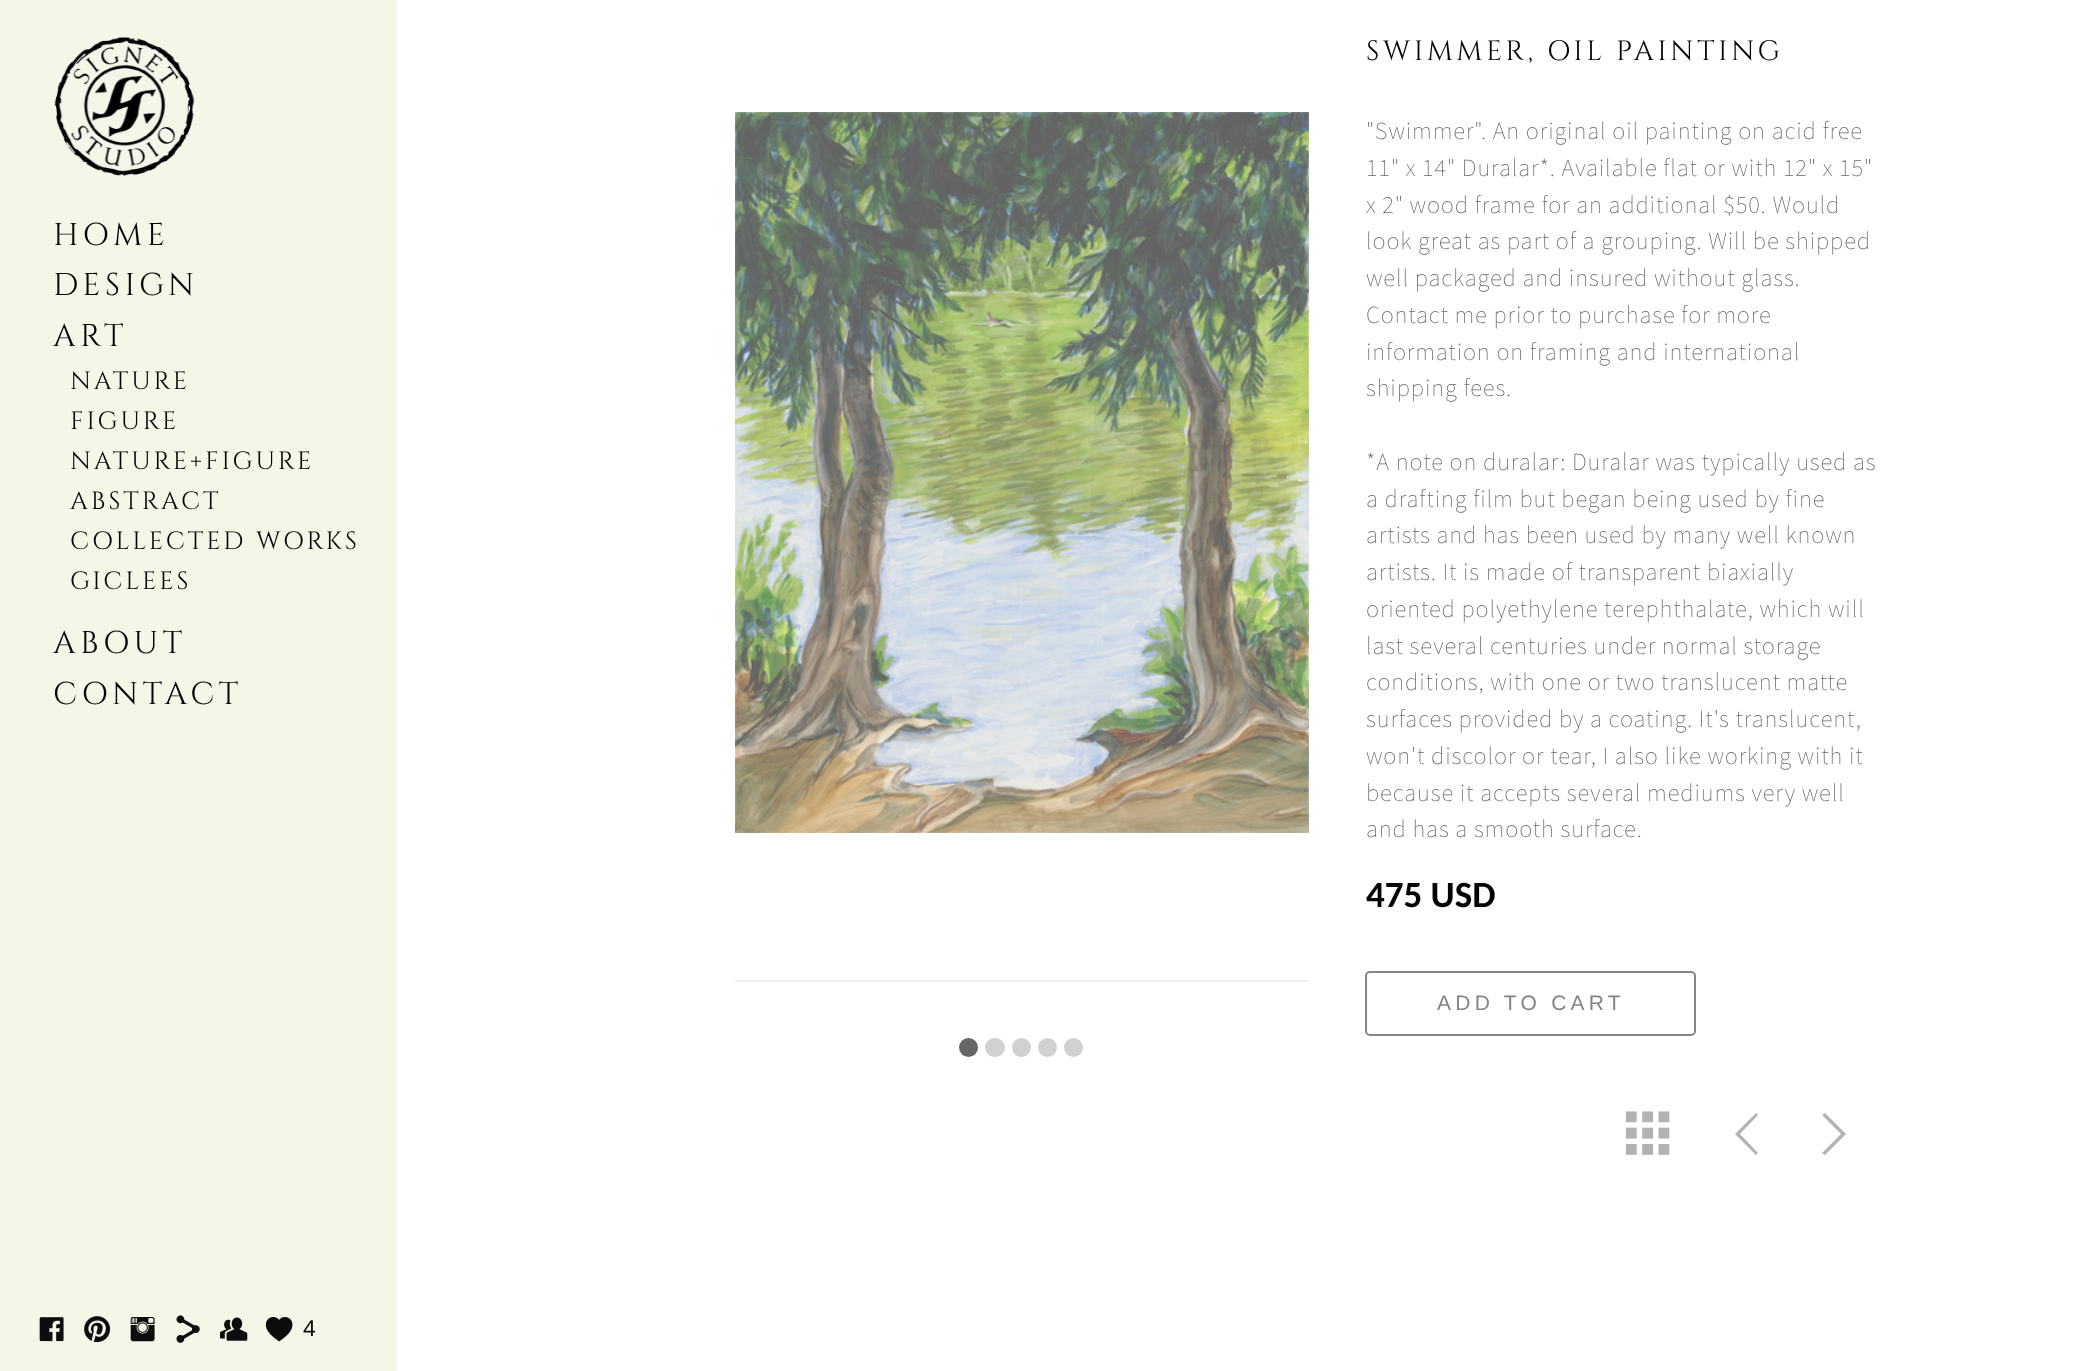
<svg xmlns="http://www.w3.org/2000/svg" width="2090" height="1371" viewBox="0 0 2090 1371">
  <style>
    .t1 { font: 31.5px Cinzel; letter-spacing: 4.5px; fill: #050505; }
    .t2 { font: 25px Cinzel; letter-spacing: 3px; fill: #050505; }
    .t3 { font: 28px Cinzel; letter-spacing: 3.5px; fill: #050505; }
    .t4 { font: 200 24.5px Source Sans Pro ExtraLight; letter-spacing: 0.88px; fill: #666; }
    .t5 { font: bold 37px Carlito; fill: #050505; }
    .t6 { font: 21px Liberation Sans; letter-spacing: 4.25px; fill: #858585; }
    .t7 { font: 23px Liberation Sans; fill: #0d0d0d; }
  </style>
  <rect width="100%" height="100%" fill="#fff"/>
  <rect x="0" y="0" width="397" height="1371" fill="#f6f6e8"/>
  <image x="54" y="36" width="141" height="140" href="images/1.png"/>
  <text x="53" y="245" class="t1">HOME</text>
  <text x="53" y="295" class="t1">DESIGN</text>
  <text x="53" y="346" class="t1">ART</text>
  <text x="70" y="389" class="t2">NATURE</text>
  <text x="70" y="429" class="t2">FIGURE</text>
  <text x="70" y="469" class="t2">NATURE+FIGURE</text>
  <text x="70" y="509" class="t2">ABSTRACT</text>
  <text x="70" y="549" class="t2">COLLECTED WORKS</text>
  <text x="70" y="589" class="t2">GICLEES</text>
  <text x="53" y="653" class="t1">ABOUT</text>
  <text x="53" y="704" class="t1">CONTACT</text>
  <rect x="735" y="980" width="574" height="2" fill="#f0f0f0"/>
  <image x="735" y="112" width="574" height="721" href="images/2.png"/>
  <circle cx="968.5" cy="1047.5" r="9.5" fill="#666"/>
  <rect x="985" y="1038" width="20" height="19" rx="9.5" fill="#d1d1d1"/>
  <circle cx="1021.5" cy="1047.5" r="9.5" fill="#d1d1d1"/>
  <circle cx="1047.5" cy="1047.5" r="9.5" fill="#d1d1d1"/>
  <circle cx="1073.5" cy="1047.5" r="9.5" fill="#d1d1d1"/>
  <text x="1366" y="60" class="t3">SWIMMER, OIL PAINTING</text>
  <text x="1366" y="139" class="t4">"Swimmer". An original oil painting on acid free</text>
  <text x="1366" y="176" class="t4">11" x 14" Duralar*. Available flat or with 12" x 15"</text>
  <text x="1366" y="213" class="t4">x 2" wood frame for an additional $50. Would</text>
  <text x="1366" y="249" class="t4">look great as part of a grouping. Will be shipped</text>
  <text x="1366" y="286" class="t4">well packaged and insured without glass.</text>
  <text x="1366" y="323" class="t4">Contact me prior to purchase for more</text>
  <text x="1366" y="360" class="t4">information on framing and international</text>
  <text x="1366" y="396" class="t4">shipping fees.</text>
  <text x="1366" y="470" class="t4">*A note on duralar: Duralar was typically used as</text>
  <text x="1366" y="507" class="t4">a drafting film but began being used by fine</text>
  <text x="1366" y="543" class="t4">artists and has been used by many well known</text>
  <text x="1366" y="580" class="t4">artists. It is made of transparent biaxially</text>
  <text x="1366" y="617" class="t4">oriented polyethylene terephthalate, which will</text>
  <text x="1366" y="654" class="t4">last several centuries under normal storage</text>
  <text x="1366" y="690" class="t4">conditions, with one or two translucent matte</text>
  <text x="1366" y="727" class="t4">surfaces provided by a coating. It's translucent,</text>
  <text x="1366" y="764" class="t4">won't discolor or tear, I also like working with it</text>
  <text x="1366" y="801" class="t4">because it accepts several mediums very well</text>
  <text x="1366" y="837" class="t4">and has a smooth surface.</text>
  <text x="1366" y="907" class="t5">475 USD</text>
  <rect x="1366" y="972" width="329" height="63" rx="4" fill="none" stroke="#858585" stroke-width="2"/>
  <text x="1437" y="1010" class="t6">ADD TO CART</text>
  <image x="1625" y="1111" width="45" height="44" href="images/3.png"/>
  <path d="M1756 1155L1758 1153L1740 1134L1758 1115L1756 1113L1735 1134Z" fill="#b3b3b3"/>
  <path d="M1846 1134L1825 1113L1822 1115L1841 1134L1822 1153L1825 1155Z" fill="#b3b3b3"/>
  <image x="39" y="1317" width="25" height="25" href="images/4.png"/>
  <image x="84" y="1316" width="27" height="27" href="images/5.png"/>
  <image x="130" y="1317" width="25" height="25" href="images/6.png"/>
  <image x="176" y="1315" width="24" height="28" href="images/7.png"/>
  <image x="220" y="1317" width="28" height="24" href="images/8.png"/>
  <image x="265" y="1317" width="28" height="25" href="images/9.png"/>
  <text x="303" y="1336" class="t7">4</text>
</svg>
